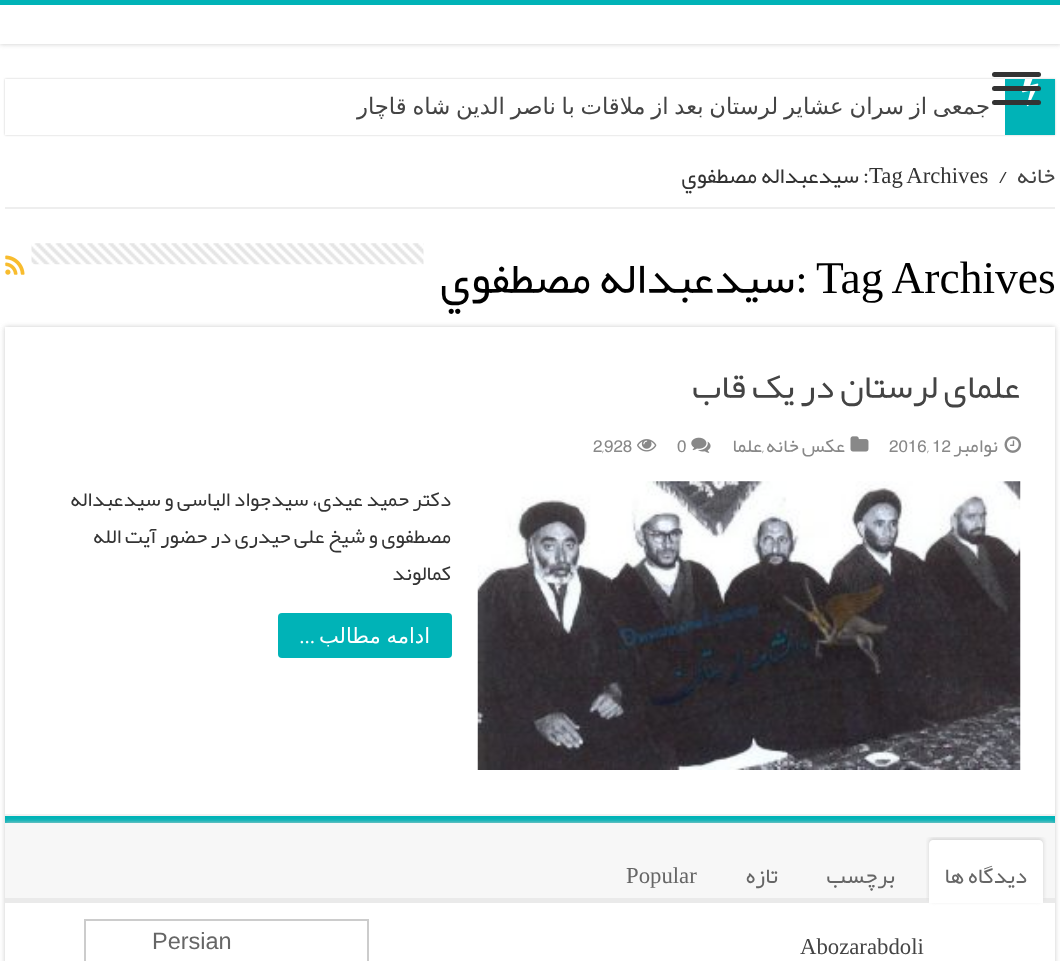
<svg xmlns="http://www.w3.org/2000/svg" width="1060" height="961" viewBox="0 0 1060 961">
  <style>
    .t1 { font: 22.75px DejaVu Sans; direction: rtl; fill: #444; }
    .t2 { font: 22.75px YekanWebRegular; direction: rtl; fill: #444; }
    .t3 { font: 22.75px YekanWebRegular; fill: #333; }
    .t4 { font: 22.75px Liberation Serif; fill: #333; }
    .t5 { font: 22.75px YekanWebRegular; direction: rtl; fill: #333; }
    .t6 { font: 45.5px Liberation Serif; fill: #000; }
    .t7 { font: 45.5px YekanWebRegular; fill: #000; }
    .t8 { font: 45.5px YekanWebRegular; direction: rtl; fill: #000; }
    .t9 { font: 35px YekanWebRegular; direction: rtl; fill: #444; }
    .t10 { font: 19.5px YekanWebRegular; direction: rtl; fill: #888; }
    .t11 { font: 19.5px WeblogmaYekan; fill: #888; }
    .t12 { font: 19.5px YekanWebRegular; fill: #888; }
    .t13 { font: 21px YekanWebRegular; direction: rtl; fill: #333; }
    .t14 { font: 21px DejaVu Sans; direction: rtl; fill: #fff; }
    .t15 { font: 21px Liberation Serif; direction: rtl; fill: #fff; }
    .t16 { font: 22.75px YekanWebRegular; direction: rtl; fill: #666; }
    .t17 { font: 22.75px Liberation Serif; fill: #666; }
    .t18 { font: 22.75px Liberation Serif; fill: #444; }
    .t19 { font: 23.5px Liberation Sans; fill: #666; }
  </style>
  <defs>
    <clipPath id="clip1"><rect x="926" y="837" width="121" height="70"/></clipPath>
  </defs>
  <rect width="100%" height="100%" fill="#fff"/>
  <rect x="0" y="0" width="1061" height="44" fill="#cacaca" filter="blur(2.5px)"/>
  <rect x="0" y="5" width="1060" height="39" fill="#fff"/>
  <rect x="0" y="0" width="1060" height="5" fill="#00b3b7"/>
  <rect x="5" y="79" width="1050" height="56" fill="#cacaca" filter="blur(1px)"/>
  <rect x="992" y="72" width="49" height="5" rx="2.5" fill="#333"/>
  <rect x="5" y="79" width="1000" height="56" fill="#fff"/>
  <rect x="1005" y="79" width="50" height="56" fill="#00b3b7"/>
  <image x="1022" y="79" width="17" height="28" href="images/1.png"/>
  <rect x="992" y="86" width="49" height="5" rx="2.5" fill="#333"/>
  <text x="990" y="114" word-spacing="-1.5" class="t1">جمعی از سران عشایر لرستان بعد از ملاقات با ناصر الدین شاه قاچار</text>
  <rect x="992" y="100" width="49" height="5" rx="2.5" fill="#333"/>
  <rect x="5" y="207" width="1050" height="2" fill="#eee"/>
  <text x="1055" y="183" class="t2">خانه</text>
  <text x="998" y="183" class="t3">/</text>
  <text x="869" y="183" word-spacing="-1" class="t4">Tag Archives</text>
  <text x="869" y="183" class="t5">: سيدعبداله مصطفوي</text>
  <text x="816" y="293" word-spacing="-1" class="t6">Tag Archives</text>
  <text x="795" y="293" class="t7">:</text>
  <text x="795" y="293" class="t8">سيدعبداله مصطفوي</text>
  <image x="31" y="243" width="393" height="22" href="images/2.png"/>
  <image x="5" y="255" width="20" height="20" href="images/3.png"/>
  <rect x="5" y="327" width="1050" height="496" fill="#cacaca" filter="blur(2.5px)"/>
  <rect x="5" y="327" width="1050" height="487" fill="#fff"/>
  <rect x="5" y="816" width="1050" height="7" fill="#00b3b7"/>
  <rect x="5" y="814" width="1050" height="2" fill="#f2f2f2"/>
  <text x="1020" y="398" class="t9">علمای لرستان در یک قاب</text>
  <image x="1004" y="436" width="18" height="17" href="images/4.png"/>
  <text x="998" y="452" class="t10">نوامبر</text>
  <text x="932" y="452" class="t11">12</text>
  <text x="889" y="452" class="t11">2016</text>
  <text x="927" y="452" class="t12">,</text>
  <image x="850" y="436" width="19" height="16" href="images/5.png"/>
  <text x="845" y="452" class="t10">عکس خانه</text>
  <text x="762" y="452" class="t12">,</text>
  <text x="762" y="452" class="t10">علما</text>
  <image x="691" y="437" width="20" height="16" href="images/6.png"/>
  <text x="677" y="452" class="t11">0</text>
  <image x="637" y="439" width="20" height="13" href="images/7.png"/>
  <text x="604" y="452" class="t11">928</text>
  <text x="602" y="452" class="t12">,</text>
  <text x="593" y="452" class="t11">2</text>
  <image x="477" y="481" width="544" height="289" href="images/8.png"/>
  <text x="451" y="506" class="t13">دکتر حمید عیدی، سیدجواد الیاسی و سیدعبداله</text>
  <text x="451" y="543" class="t13">مصطفوی و شیخ علی حیدری در حضور آیت الله</text>
  <text x="451" y="580" class="t13">کمالوند</text>
  <rect x="278" y="613" width="174" height="45" rx="4" fill="#00b3b7"/>
  <text x="430" y="643" word-spacing="-1" class="t14">ادامه مطالب</text>
  <text x="315" y="643" class="t15">...</text>
  <rect x="5" y="823" width="1050" height="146" fill="#cacaca" filter="blur(2.5px)"/>
  <rect x="5" y="903" width="1050" height="58" fill="#fff"/>
  <rect x="5" y="823" width="1050" height="75" fill="#f7f7f7"/>
  <rect x="5" y="898" width="1050" height="5" fill="#eaeaea"/>
  <g clip-path="url(#clip1)">
    <rect x="929" y="838" width="114" height="63" rx="4" fill="#d4d4d4" filter="blur(2px)"/>
  </g>
  <path d="M933 840H1039C1041 840 1043 842 1043 844V903H929V844C929 842 931 840 933 840Z" fill="#fff"/>
  <text x="1027" y="883" class="t16">دیدگاه ها</text>
  <text x="895" y="883" class="t16">برچسب</text>
  <text x="778" y="883" class="t16">تازه</text>
  <text x="626" y="883" class="t17">Popular</text>
  <text x="800" y="954" class="t18">Abozarabdoli</text>
  <rect x="85" y="920" width="283" height="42" fill="none" stroke="#ccc" stroke-width="2"/>
  <text x="152" y="949" class="t19">Persian</text>
</svg>
